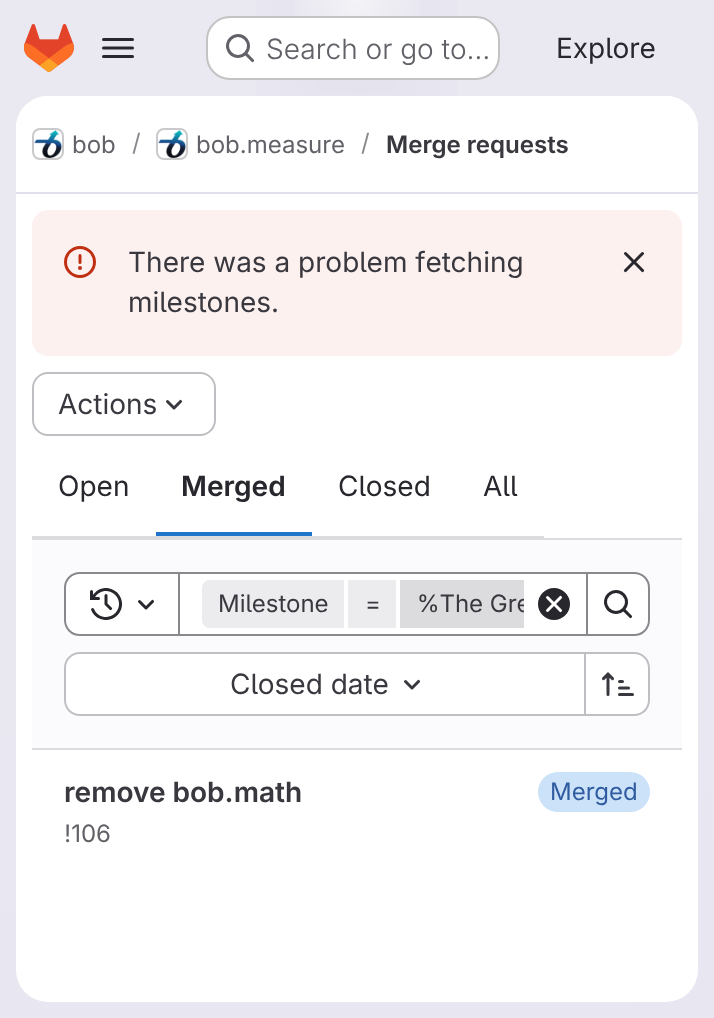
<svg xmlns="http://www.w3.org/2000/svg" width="714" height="1018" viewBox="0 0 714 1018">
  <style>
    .t1 { font: 300 28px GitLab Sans; fill: #626168; }
    .t2 { font: 28px GitLab Sans; fill: #28272d; }
    .t3 { font: 24px GitLab Sans; fill: #626168; }
    .t4 { font: 24px GitLab Sans; fill: #89888d; }
    .t5 { font: 600 24px GitLab Sans; fill: #3a383f; }
    .t6 { font: 28px GitLab Sans; fill: #3a383f; }
    .t7 { font: 600 28px GitLab Sans; fill: #28272d; }
    .t8 { font: 24px GitLab Sans; fill: #3a383f; }
    .t9 { font: 600 28px GitLab Sans; fill: #3a383f; }
    .t10 { font: 24px GitLab Sans; fill: #2f5ca0; }
  </style>
  <defs>
    <linearGradient id="g1" gradientUnits="userSpaceOnUse" x1="455" y1="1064" x2="259" y2="-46"><stop offset="0" stop-color="#e8e6f0"/><stop offset="0.7" stop-color="#eae9f2"/></linearGradient>
    <radialGradient id="g2" gradientUnits="userSpaceOnUse" cx="0" cy="0" r="1" gradientTransform="matrix(357 0 0 1018 357 0)"><stop offset="0" stop-color="#e4e2ed"/><stop offset="0.39" stop-color="#e4e2ed" stop-opacity="0"/></radialGradient>
    <radialGradient id="g3" gradientUnits="userSpaceOnUse" cx="0" cy="0" r="1" gradientTransform="matrix(357 0 0 1018 357 0)"><stop offset="0" stop-color="#e4e2ec"/><stop offset="0.28" stop-color="#e4e2ec" stop-opacity="0"/></radialGradient>
    <radialGradient id="g4" gradientUnits="userSpaceOnUse" cx="357" cy="0" r="1079"><stop offset="0" stop-color="#fff" stop-opacity="0.6"/><stop offset="0.07" stop-color="#fff" stop-opacity="0"/></radialGradient>
    <clipPath id="clip1"><rect x="202" y="580" width="322" height="48"/></clipPath>
  </defs>
  <rect width="100%" height="100%" fill="#fff"/>
  <rect x="0" y="0" width="714" height="1018" fill="url(#g1)"/>
  <rect x="256" y="0" width="202" height="96" fill="url(#g2)"/>
  <rect x="317" y="2" width="80" height="89" fill="url(#g3)"/>
  <rect x="294" y="0" width="126" height="16" fill="url(#g4)"/>
  <image x="24" y="24" width="50" height="48" href="images/1.png"/>
  <image x="102" y="38" width="32" height="20" href="images/2.png"/>
  <rect x="206" y="16" width="294" height="64" rx="24" fill="#fff"/>
  <rect x="207" y="17" width="292" height="62" rx="23" fill="none" stroke="#0505063d" stroke-width="2"/>
  <image x="226" y="34" width="29" height="29" href="images/3.png"/>
  <text x="266" y="59" class="t1">Search or go to…</text>
  <text x="556" y="58" class="t2">Explore</text>
  <rect x="16" y="96" width="682" height="906" rx="32" fill="#fff"/>
  <path d="M48 96H666C683.5 96 698 110.5 698 128V194H16V128C16 110.5 30.5 96 48 96Z" fill="#fff"/>
  <rect x="16" y="192" width="682" height="2" fill="#e1dfec"/>
  <rect x="33" y="129" width="30" height="30" rx="7" fill="none" stroke="#dcdcde" stroke-width="2"/>
  <image x="34" y="130" width="28" height="28" href="images/4.png"/>
  <rect x="33" y="129" width="30" height="30" rx="7" fill="none" stroke="#05050614" stroke-width="2"/>
  <text x="72" y="153" class="t3">bob</text>
  <text x="132" y="151" class="t4">/</text>
  <rect x="157" y="129" width="30" height="30" rx="7" fill="none" stroke="#dcdcde" stroke-width="2"/>
  <image x="158" y="130" width="28" height="28" href="images/4.png"/>
  <rect x="157" y="129" width="30" height="30" rx="7" fill="none" stroke="#05050614" stroke-width="2"/>
  <text x="196" y="153" class="t3">bob.measure</text>
  <text x="361" y="151" class="t4">/</text>
  <text x="386" y="153" class="t5">Merge requests</text>
  <rect x="32" y="210" width="650" height="146" rx="16" fill="#fcf1ef"/>
  <image x="64" y="246" width="32" height="32" href="images/5.png"/>
  <text x="128" y="272" class="t6">There was a problem fetching</text>
  <text x="128" y="312" class="t6">milestones.</text>
  <image x="623" y="252" width="22" height="21" href="images/6.png"/>
  <rect x="32" y="538" width="650" height="2" fill="#dcdcde"/>
  <rect x="33" y="373" width="182" height="62" rx="15" fill="none" stroke="#bfbfc3" stroke-width="2"/>
  <text x="58" y="414" class="t6">Actions</text>
  <image x="166" y="399" width="17" height="11" href="images/7.png"/>
  <rect x="32" y="536" width="512" height="2" fill="#dcdcde"/>
  <text x="58" y="496" class="t2">Open</text>
  <text x="181" y="496" class="t7">Merged</text>
  <rect x="156" y="532" width="156" height="4" fill="#1f75cb"/>
  <text x="338" y="496" class="t2">Closed</text>
  <text x="483" y="496" class="t2">All</text>
  <rect x="32" y="540" width="650" height="208" fill="#fbfafd"/>
  <rect x="32" y="748" width="650" height="2" fill="#dcdcde"/>
  <rect x="179" y="573" width="408" height="62" fill="#fff" stroke="#89888d" stroke-width="2"/>
  <path d="M80 573H179V635H80C71.5 635 65 628.5 65 620V588C65 579.5 71.5 573 80 573Z" fill="#fff" stroke="#89888d" stroke-width="2"/>
  <image x="90" y="588" width="32" height="32" href="images/8.png"/>
  <image x="138" y="599" width="17" height="11" href="images/9.png"/>
  <path d="M210 580H344V628H210C205.5 628 202 624.5 202 620V588C202 583.5 205.5 580 210 580Z" fill="#ececef"/>
  <text x="218" y="612" class="t8">Milestone</text>
  <rect x="348" y="580" width="48" height="48" fill="#ececef"/>
  <text x="365" y="612" class="t8">=</text>
  <rect x="400" y="580" width="124" height="48" fill="#dcdcde"/>
  <g clip-path="url(#clip1)">
    <text x="417" y="612" class="t8">%The Gre</text>
  </g>
  <image x="538" y="588" width="32" height="32" href="images/10.png"/>
  <path d="M587 573H634C642.5 573 649 579.5 649 588V620C649 628.5 642.5 635 634 635H587Z" fill="#fff" stroke="#89888d" stroke-width="2"/>
  <image x="604" y="590" width="29" height="29" href="images/11.png"/>
  <path d="M80 654H584V714H80C72.5 714 66 707.5 66 700V668C66 660.5 72.5 654 80 654Z" fill="#fff"/>
  <path d="M80 652H584V716H80C71 716 64 709 64 700V668C64 659 71 652 80 652ZM80 654H584V714H80C72 714 66 708 66 700V668C66 660 72 654 80 654Z" fill="#bfbfc3" fill-rule="evenodd"/>
  <text x="230" y="694" class="t6">Closed date</text>
  <image x="404" y="679" width="17" height="11" href="images/7.png"/>
  <path d="M586 654H634C641.5 654 648 660.5 648 668V700C648 707.5 641.5 714 634 714H586Z" fill="#fff"/>
  <path d="M586 652H634C643 652 650 659 650 668V700C650 709 643 716 634 716H586ZM586 654H634C642 654 648 660 648 668V700C648 708 642 714 634 714H586Z" fill="#bfbfc3" fill-rule="evenodd"/>
  <rect x="584" y="652" width="2" height="64" fill="#bfbfc3"/>
  <image x="602" y="672" width="32" height="24" href="images/12.png"/>
  <text x="64" y="802" class="t9">remove bob.math</text>
  <text x="64" y="842" class="t3">!106</text>
  <rect x="538" y="772" width="112" height="40" rx="20" fill="#cbe2f9"/>
  <text x="550" y="800" class="t10">Merged</text>
</svg>
